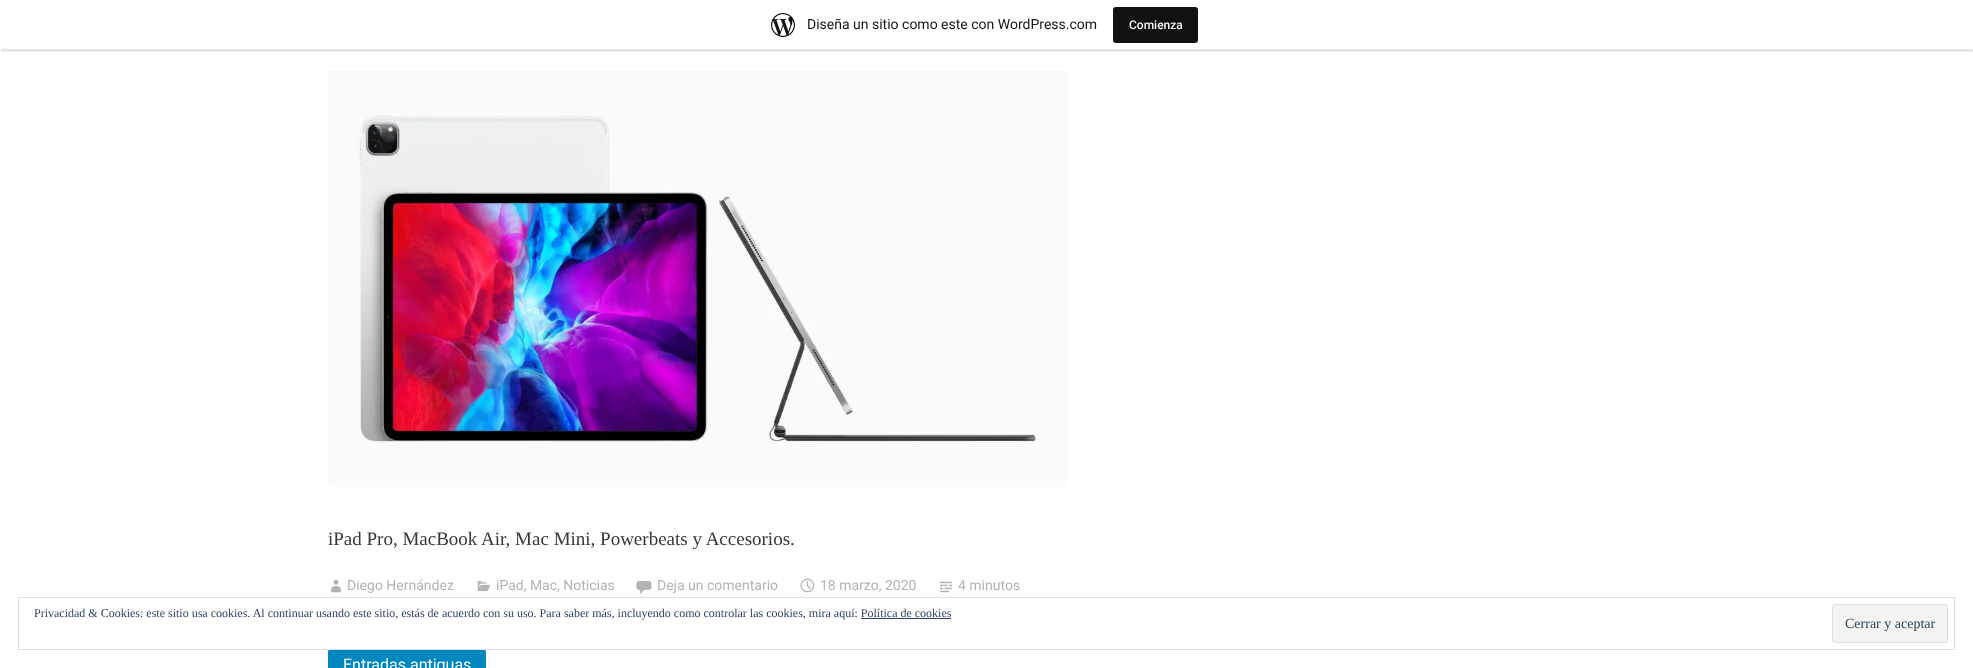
<svg xmlns="http://www.w3.org/2000/svg" width="1973" height="668" viewBox="0 0 1973 668">
  <style>
    .t1 { font: 14px Roboto; fill: #171717; }
    .t2 { font: 500 12px Roboto; fill: #f6f7f7; }
    .t3 { font: 19px Liberation Serif; fill: #383838; }
    .t4 { font: 14px Roboto; fill: #b3b3b1; }
    .t5 { font: 16px Roboto; fill: #fff; }
    .t6 { font: 12px Liberation Serif; fill: #2e4467; }
    .t7 { font: 14px Liberation Serif; fill: #2e4453; }
  </style>
  <rect width="100%" height="100%" fill="#fff"/>
  <rect x="0" y="1" width="1973" height="49" fill="#0000000d" filter="blur(1px)"/>
  <path d="M1 49V52H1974V3H1973V49Z" fill="#00000014"/>
  <rect x="0" y="0" width="1973" height="49" fill="#fff"/>
  <image x="771" y="13" width="24" height="24" href="images/1.png"/>
  <text x="807" y="29" class="t1">Diseña un sitio como este con WordPress.com</text>
  <rect x="1113" y="7" width="85" height="36" rx="3" fill="#111"/>
  <text x="1129" y="29" class="t2">Comienza</text>
  <image x="328" y="70" width="740" height="417" href="images/2.png"/>
  <text x="328" y="545" class="t3">iPad Pro, MacBook Air, Mac Mini, Powerbeats y Accesorios.</text>
  <image x="331" y="579" width="10" height="14" href="images/3.png"/>
  <text x="347" y="590" class="t4">Diego Hernández</text>
  <image x="477" y="581" width="13" height="11" href="images/4.png"/>
  <text x="496" y="590" class="t4">iPad, Mac, Noticias</text>
  <image x="636" y="581" width="16" height="13" href="images/5.png"/>
  <text x="657" y="590" class="t4">Deja un comentario</text>
  <image x="800" y="578" width="15" height="15" href="images/6.png"/>
  <text x="820" y="590" class="t4">18 marzo, 2020</text>
  <image x="940" y="581" width="12" height="12" href="images/7.png"/>
  <text x="958" y="590" class="t4">4 minutos</text>
  <rect x="328" y="649" width="158" height="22" rx="3" fill="#0087be"/>
  <text x="343" y="670" class="t5">Entradas antiguas</text>
  <rect x="18.5" y="597.5" width="1936" height="52" fill="none" stroke="#dedede"/>
  <text x="34" y="617" class="t6">Privacidad &amp; Cookies: este sitio usa cookies. Al continuar usando este sitio, estás de acuerdo con su uso. Para saber más, incluyendo como controlar las cookies, mira aquí: Política de cookies</text>
  <rect x="861" y="618" width="90" height="1" fill="#2e4467"/>
  <rect x="1832.5" y="604.5" width="115" height="38" rx="2.5" fill="#f3f3f3" stroke="#dedede"/>
  <text x="1845" y="628" class="t7">Cerrar y aceptar</text>
</svg>
